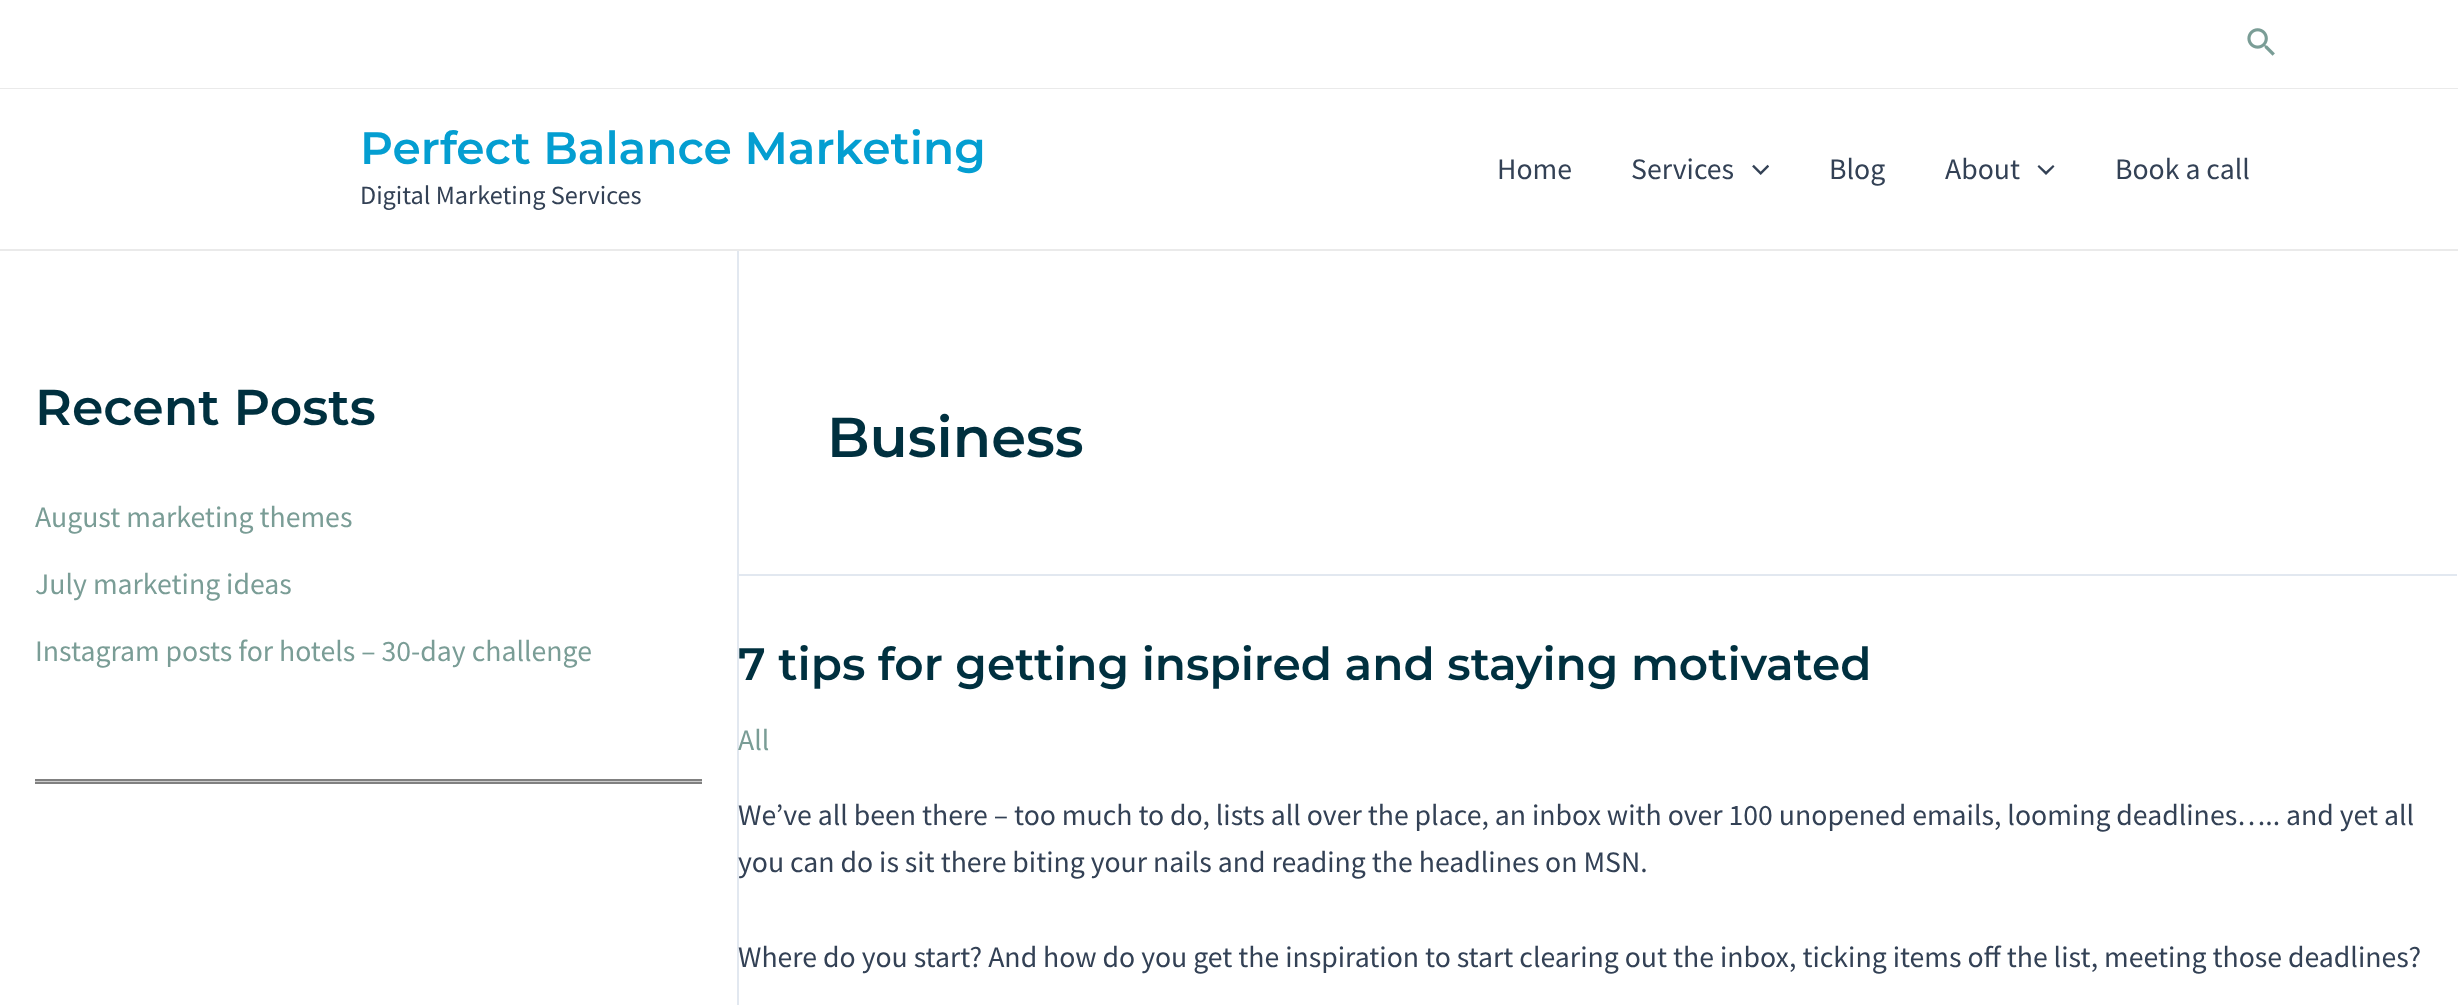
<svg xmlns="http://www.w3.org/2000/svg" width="2458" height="1005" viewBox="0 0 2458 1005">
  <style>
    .t1 { font: 600 45.5px Montserrat; fill: #049ed1; }
    .t2 { font: 26.25px Source Sans Pro; fill: #334155; }
    .t3 { font: 29.75px Source Sans Pro; fill: #334155; }
    .t4 { font: 600 50.5px Montserrat; fill: #00303f; }
    .t5 { font: 29.75px Source Sans Pro; fill: #7a9d96; }
    .t6 { font: 600 56px Montserrat; fill: #00303f; }
    .t7 { font: 600 45.5px Montserrat; fill: #00303f; }
  </style>
  <rect width="100%" height="100%" fill="#fff"/>
  <rect x="0" y="88" width="2458" height="1" fill="#eaeaea"/>
  <image x="2247" y="28" width="28" height="28" href="images/1.png"/>
  <rect x="737" y="250" width="2" height="755" fill="#e2e8f0"/>
  <rect x="0" y="249" width="2458" height="2" fill="#eaeaea"/>
  <text x="360" y="164" class="t1">Perfect Balance Marketing</text>
  <text x="360" y="204" class="t2">Digital Marketing Services</text>
  <text x="1497" y="179" class="t3">Home</text>
  <text x="1631" y="179" class="t3">Services</text>
  <image x="1752" y="164" width="17" height="11" href="images/2.png"/>
  <text x="1829" y="179" class="t3">Blog</text>
  <text x="1945" y="179" class="t3">About</text>
  <path d="M2037.5 166.5L2046 175L2054.5 166.5L2053 165L2046 171.5L2039 165Z" fill="#334155"/>
  <text x="2115" y="179" class="t3">Book a call</text>
  <text x="35" y="425" class="t4">Recent Posts</text>
  <text x="35" y="527" class="t5">August marketing themes</text>
  <text x="35" y="594" class="t5">July marketing ideas</text>
  <text x="35" y="661" class="t5">Instagram posts for hotels – 30-day challenge</text>
  <rect x="35" y="781" width="667" height="1" fill="#ccc"/>
  <rect x="35" y="779" width="667" height="2" fill="#808080"/>
  <rect x="35" y="782" width="667" height="2" fill="#808080"/>
  <rect x="739" y="574" width="1718" height="2" fill="#e2e8f0"/>
  <text x="827" y="457" class="t6">Business</text>
  <text x="738" y="680" class="t7">7 tips for getting inspired and staying motivated</text>
  <text x="738" y="750" class="t5">All</text>
  <text x="738" y="825" class="t3">We’ve all been there – too much to do, lists all over the place, an inbox with over 100 unopened emails, looming deadlines….. and yet all</text>
  <text x="738" y="872" class="t3">you can do is sit there biting your nails and reading the headlines on MSN.</text>
  <text x="738" y="967" class="t3">Where do you start? And how do you get the inspiration to start clearing out the inbox, ticking items off the list, meeting those deadlines?</text>
</svg>
